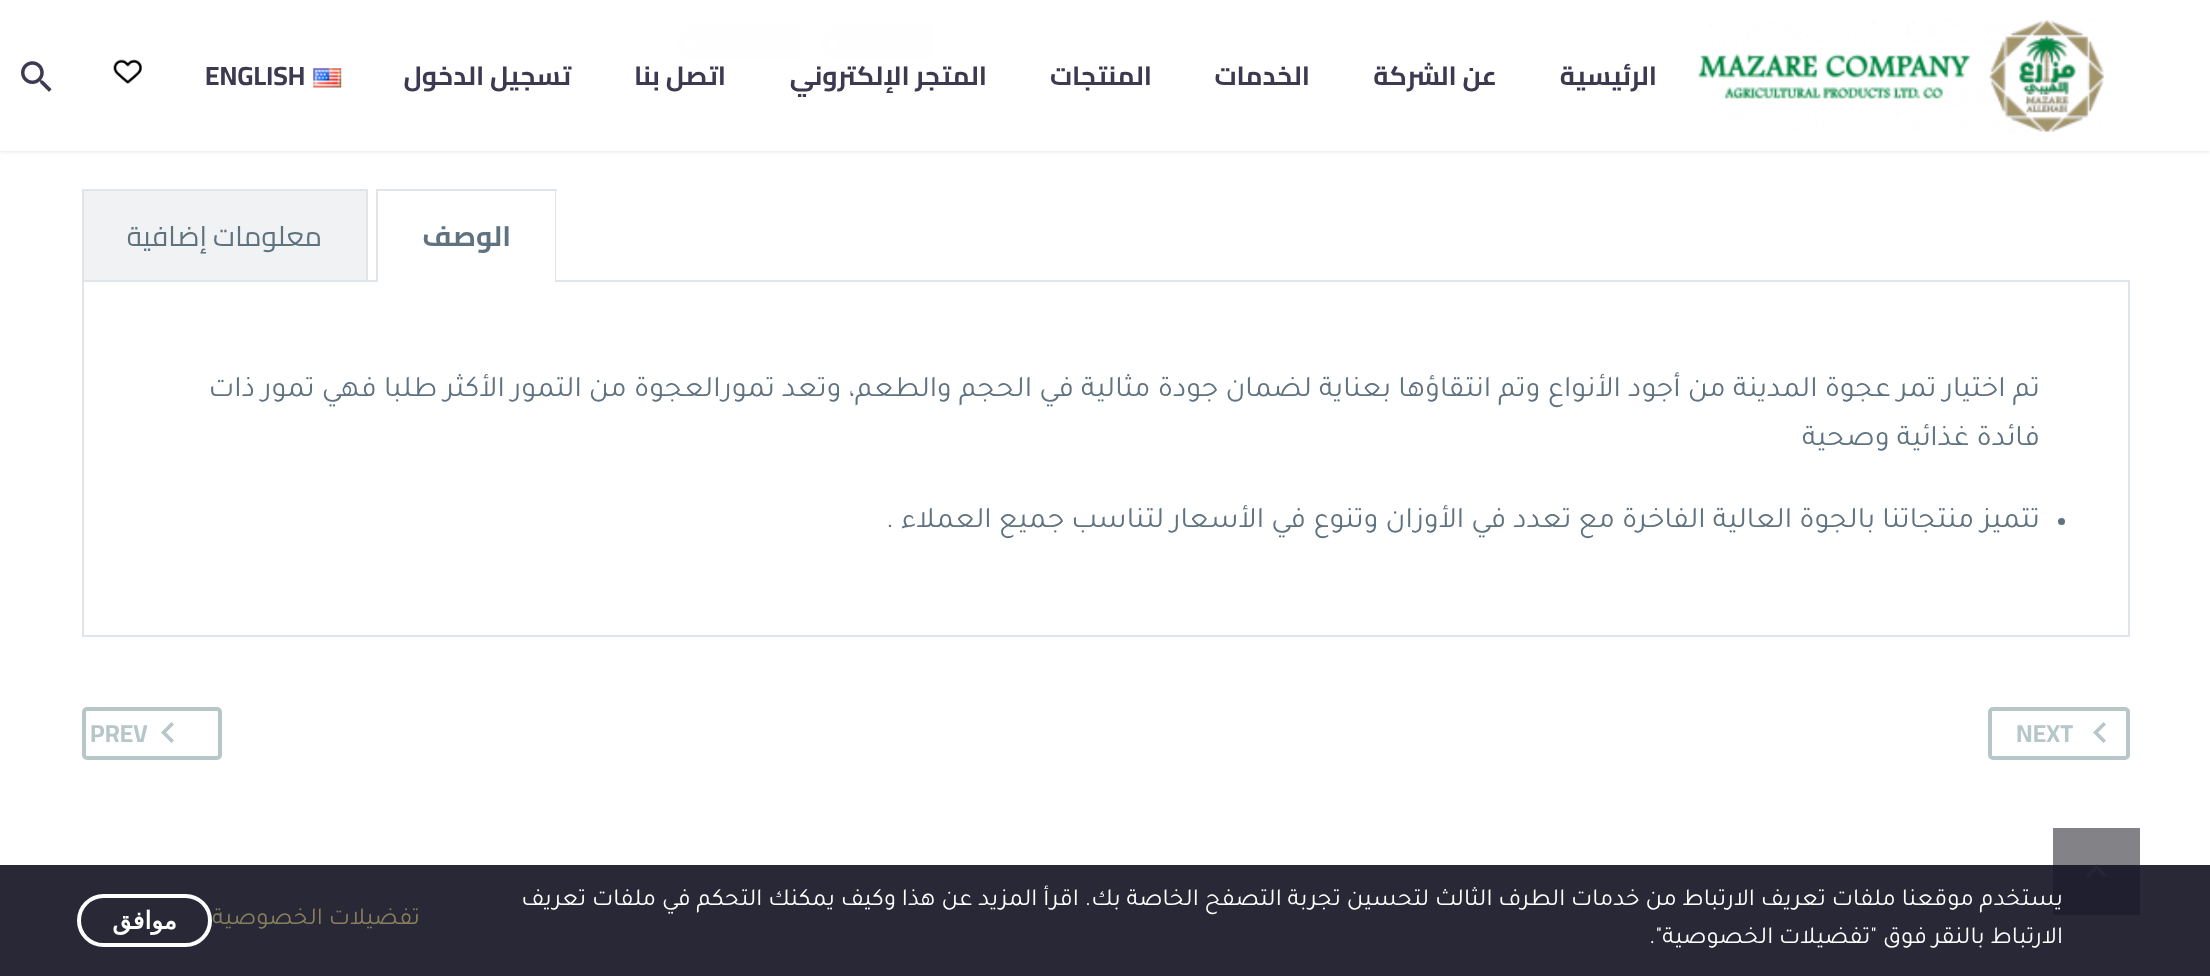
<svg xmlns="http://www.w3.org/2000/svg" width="2210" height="976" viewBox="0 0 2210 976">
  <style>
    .t1 { font: bold 26.25px Cairo; direction: rtl; fill: #3c3950; }
    .t2 { font: bold 26.25px Cairo; fill: #3c3950; }
    .t3 { font: bold 28px Cairo; direction: rtl; fill: #5f727f; }
    .t4 { font: 28px Cairo; direction: rtl; fill: #5f727f; }
    .t5 { font: 29.75px Tajawal; direction: rtl; fill: #5f727f; }
    .t6 { font: bold 24.5px Cairo; fill: #b6c6c9; }
    .t7 { font: 24.5px Tajawal; direction: rtl; fill: #fff; }
    .t8 { font: 24.5px Tajawal; direction: rtl; fill: #897e5d; }
    .t9 { font: bold 24.5px DejaVu Sans; direction: rtl; fill: #fff; }
  </style>
  <defs>
    <clipPath id="clip1"><path d="M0 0H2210V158H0ZM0 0H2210V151H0Z" clip-rule="evenodd"/></clipPath>
  </defs>
  <rect width="100%" height="100%" fill="#fff"/>
  <rect x="0" y="865" width="2210" height="111" fill="#282837"/>
  <rect x="837" y="23" width="96" height="37" rx="5" fill="#dfe5e8"/>
  <path d="M843 26L853.5 37C856.5 39.5 856.5 44.5 853.5 47L843 58C840 60.5 835.5 60.5 832.5 58L822 47C819 44.5 819 39.5 822 37L832.5 26C835.5 23.5 840 23.5 843 26Z" fill="#dfe5e8"/>
  <circle cx="833" cy="42" r="5" fill="#fff"/>
  <rect x="693" y="23" width="107" height="37" rx="5" fill="#dfe5e8"/>
  <path d="M699.5 26L710 37C712.5 39.5 712.5 44.5 710 47L699.5 58C696.5 60.5 691.5 60.5 689 58L678.5 47C675.5 44.5 675.5 39.5 678.5 37L689 26C691.5 23.5 696.5 23.5 699.5 26Z" fill="#dfe5e8"/>
  <rect x="684" y="37" width="11" height="10" rx="5" fill="#fff"/>
  <g clip-path="url(#clip1)">
    <rect x="0" y="0" width="2210" height="151" fill="#38455433" filter="blur(2px)"/>
  </g>
  <rect x="0" y="23" width="2210" height="128" fill="#fffffff2"/>
  <image x="1697" y="19" width="407" height="114" href="images/1.png"/>
  <text x="1657" y="85" class="t1">الرئيسية</text>
  <text x="1497" y="85" class="t1">عن الشركة</text>
  <text x="1310" y="85" class="t1">الخدمات</text>
  <text x="1152" y="85" class="t1">المنتجات</text>
  <text x="987" y="85" class="t1">المتجر الإلكتروني</text>
  <text x="726" y="85" class="t1">اتصل بنا</text>
  <text x="571" y="85" class="t1">تسجيل الدخول</text>
  <image x="313" y="68" width="29" height="20" href="images/2.png"/>
  <text x="205" y="85" class="t2">ENGLISH</text>
  <image x="113" y="59" width="29" height="25" href="images/3.png"/>
  <image x="21" y="61" width="31" height="31" href="images/4.png"/>
  <rect x="83" y="281" width="2046" height="355" fill="none" stroke="#dfe5e8" stroke-width="2"/>
  <rect x="378" y="280" width="179" height="2" fill="#fff"/>
  <rect x="376" y="189" width="181" height="2" fill="#dfe5e8"/>
  <path d="M556 189V282L555 280V191Z" fill="#dfe5e8"/>
  <path d="M376 282V189L378 191V280Z" fill="#dfe5e8"/>
  <text x="511" y="246" class="t3">الوصف</text>
  <rect x="555" y="280" width="2" height="2" fill="#dfe5e8"/>
  <rect x="83" y="190" width="284" height="91" fill="#f1f2f4" stroke="#dfe5e8" stroke-width="2"/>
  <text x="322" y="246" class="t4">معلومات إضافية</text>
  <text x="2040" y="396" class="t5">تم اختيار تمر عجوة المدينة من أجود الأنواع وتم انتقاؤها بعناية لضمان جودة مثالية في الحجم والطعم، وتعد تمورالعجوة من التمور الأكثر طلبا فهي تمور ذات</text>
  <text x="2040" y="445" class="t5">فائدة غذائية وصحية</text>
  <circle cx="2061.5" cy="521.5" r="3.5" fill="#5f727f"/>
  <text x="2040" y="527" class="t5">تتميز منتجاتنا بالجوة العالية الفاخرة مع تعدد في الأوزان وتنوع في الأسعار لتناسب جميع العملاء .</text>
  <rect x="1990" y="709" width="138" height="49" rx="3" fill="none" stroke="#b6c6c9" stroke-width="4"/>
  <path d="M2106 740.5L2098 732.5L2106 724.5L2103.5 722L2093 732.5L2103.5 743Z" fill="#b6c6c9"/>
  <text x="2016" y="742" class="t6">NEXT</text>
  <rect x="84" y="709" width="136" height="49" rx="3" fill="none" stroke="#b6c6c9" stroke-width="4"/>
  <path d="M174 740.5L166 732.5L174 724.5L171.5 722L161 732.5L171.5 743Z" fill="#b6c6c9"/>
  <text x="90" y="742" class="t6">PREV</text>
  <rect x="2053" y="828" width="87" height="37" fill="#838387"/>
  <rect x="2053" y="865" width="87" height="50" fill="#1f1f2f"/>
  <path d="M2088.5 877.5L2096.5 869.5L2104.5 877.5L2107 875L2096.5 864.5L2086 875Z" fill="#252534"/>
  <text x="2063" y="905" class="t7">يستخدم موقعنا ملفات تعريف الارتباط من خدمات الطرف الثالث لتحسين تجربة التصفح الخاصة بك. اقرأ المزيد عن هذا وكيف يمكنك التحكم في ملفات تعريف</text>
  <text x="2063" y="943" class="t7">الارتباط بالنقر فوق "تفضيلات الخصوصية".</text>
  <text x="420" y="924" class="t8">تفضيلات الخصوصية</text>
  <rect x="79" y="896" width="131" height="49" rx="24.5" fill="none" stroke="#fff" stroke-width="4"/>
  <text x="177" y="929" class="t9">موافق</text>
</svg>
